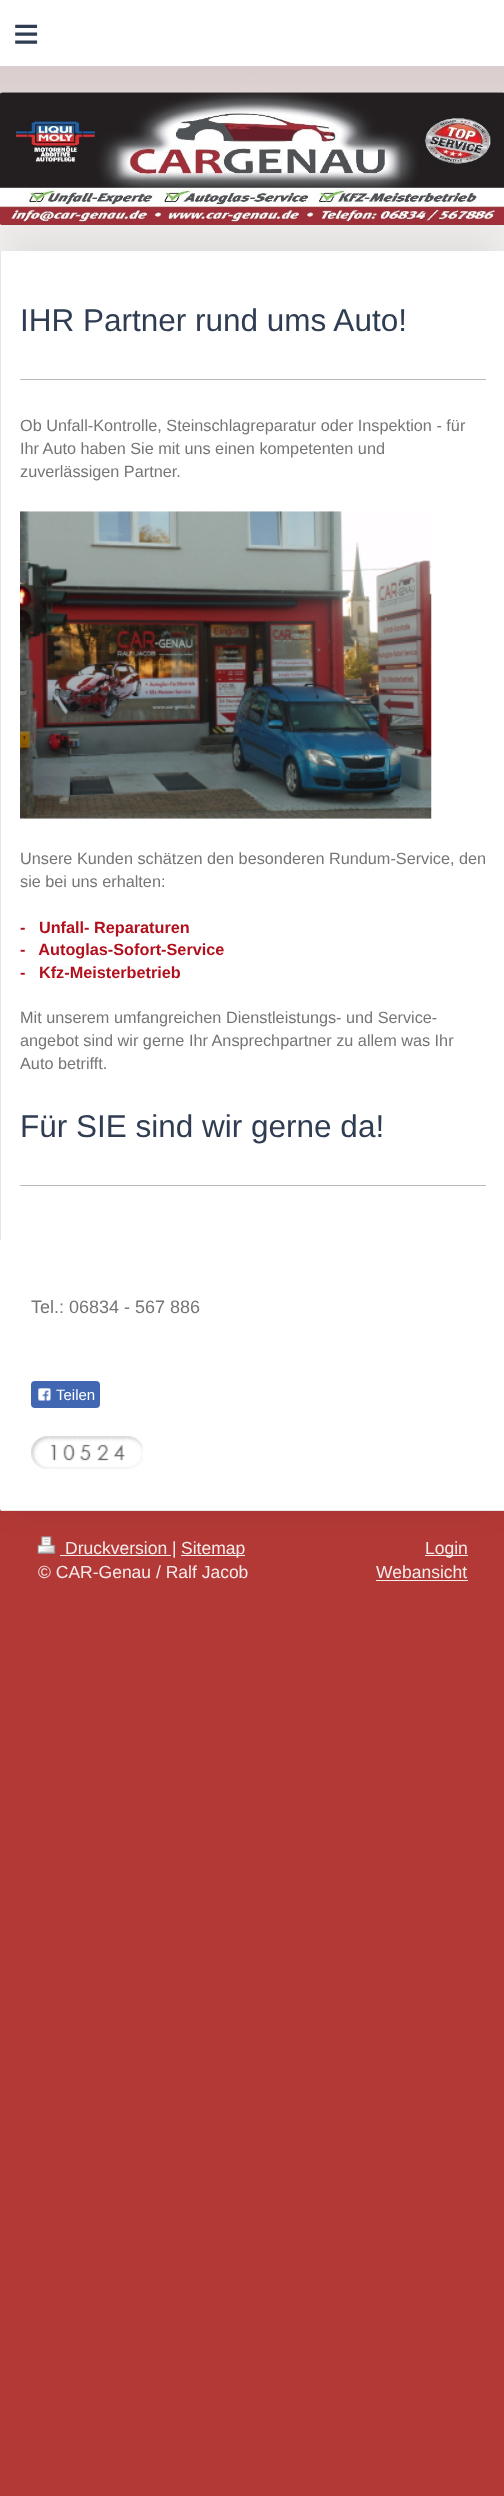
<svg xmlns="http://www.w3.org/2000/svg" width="504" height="2496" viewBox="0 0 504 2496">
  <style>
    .t1 { font: 45px Liberation Sans; letter-spacing: 13px; fill: #303c52; }
    .t2 { font: 31.5px Liberation Sans; fill: #303c52; }
    .t3 { font: 16.25px Liberation Sans; fill: #757575; }
    .t4 { font: bold 16.25px Liberation Sans; fill: #b2101d; }
    .t5 { font: 18px Liberation Sans; fill: #757575; }
    .t6 { font: 15px Liberation Sans; fill: #fff; }
    .t7 { font: 17.5px Liberation Sans; fill: #f7ebeb; }
  </style>
  <defs>
    <linearGradient id="g1" gradientUnits="userSpaceOnUse" x1="0" y1="304" x2="0" y2="66"><stop offset="0" stop-color="#fff"/><stop offset="1" stop-color="#d9cdcd"/></linearGradient>
  </defs>
  <rect width="100%" height="100%" fill="#b23936"/>
  <rect x="0" y="0" width="504" height="66" fill="#fff"/>
  <text x="13" y="49" class="t1">≡</text>
  <rect x="0" y="66" width="504" height="186" fill="url(#g1)"/>
  <image x="0" y="92" width="504" height="133" href="images/1.png"/>
  <rect x="0" y="239" width="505" height="1260" rx="2.5" fill="#0000001a" filter="blur(19px)"/>
  <image x="0" y="92" width="504" height="133" href="images/2.png"/>
  <rect x="0" y="251" width="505" height="1260" rx="2.5" fill="#fff"/>
  <rect x="1" y="1510" width="503" height="1" fill="#e6e6e6"/>
  <rect x="0" y="251" width="1" height="989" fill="#e6e6e6"/>
  <text x="20" y="331" class="t2">IHR Partner rund ums Auto!</text>
  <rect x="20" y="379" width="466" height="1" fill="#bababa"/>
  <text x="20" y="431" class="t3">Ob Unfall-Kontrolle, Steinschlagreparatur oder Inspektion - für</text>
  <text x="20" y="454" class="t3">Ihr Auto haben Sie mit uns einen kompetenten und</text>
  <text x="20" y="477" class="t3">zuverlässigen Partner.</text>
  <image x="20" y="511" width="412" height="308" href="images/3.png"/>
  <text x="20" y="864" class="t3">Unsere Kunden schätzen den besonderen Rundum-Service, den</text>
  <text x="20" y="887" class="t3">sie bei uns erhalten:</text>
  <text x="20" y="933" class="t4" xml:space="preserve">-   Unfall- Reparaturen</text>
  <text x="20" y="955" class="t4" xml:space="preserve">-   Autoglas-Sofort-Service</text>
  <text x="20" y="978" class="t4" xml:space="preserve">-   Kfz-Meisterbetrieb</text>
  <text x="20" y="1023" class="t3">Mit unserem umfangreichen Dienstleistungs- und Service-</text>
  <text x="20" y="1046" class="t3">angebot sind wir gerne Ihr Ansprechpartner zu allem was Ihr</text>
  <text x="20" y="1069" class="t3">Auto betrifft.</text>
  <text x="20" y="1137" class="t2">Für SIE sind wir gerne da!</text>
  <rect x="20" y="1185" width="466" height="1" fill="#bababa"/>
  <text x="31" y="1313" class="t5">Tel.: 06834 - 567 886</text>
  <rect x="31" y="1381" width="69" height="27" rx="4" fill="#4267b2"/>
  <image x="38" y="1388" width="13" height="13" href="images/4.png"/>
  <text x="56" y="1400" class="t6">Teilen</text>
  <image x="31" y="1436" width="18" height="33" href="images/5.png"/>
  <image x="49" y="1436" width="13" height="33" href="images/6.png"/>
  <image x="61" y="1436" width="17" height="33" href="images/7.png"/>
  <image x="77" y="1436" width="18" height="33" href="images/8.png"/>
  <image x="95" y="1436" width="17" height="33" href="images/9.png"/>
  <image x="111" y="1436" width="17" height="33" href="images/10.png"/>
  <image x="127" y="1436" width="16" height="33" href="images/11.png"/>
  <image x="37" y="1536" width="19" height="18" href="images/12.png"/>
  <rect x="60" y="1555" width="111" height="1" fill="#f7ebeb"/>
  <text x="65" y="1554" class="t7">Druckversion |</text>
  <rect x="181" y="1555" width="64" height="1" fill="#f7ebeb"/>
  <text x="181" y="1554" class="t7">Sitemap</text>
  <text x="38" y="1578" class="t7">© CAR-Genau / Ralf Jacob</text>
  <rect x="425" y="1555" width="43" height="1" fill="#f7ebeb"/>
  <text x="425" y="1554" class="t7">Login</text>
  <text x="376" y="1578" class="t7">Webansicht</text>
  <rect x="376" y="1580" width="92" height="1" fill="#f7ebeb"/>
</svg>
